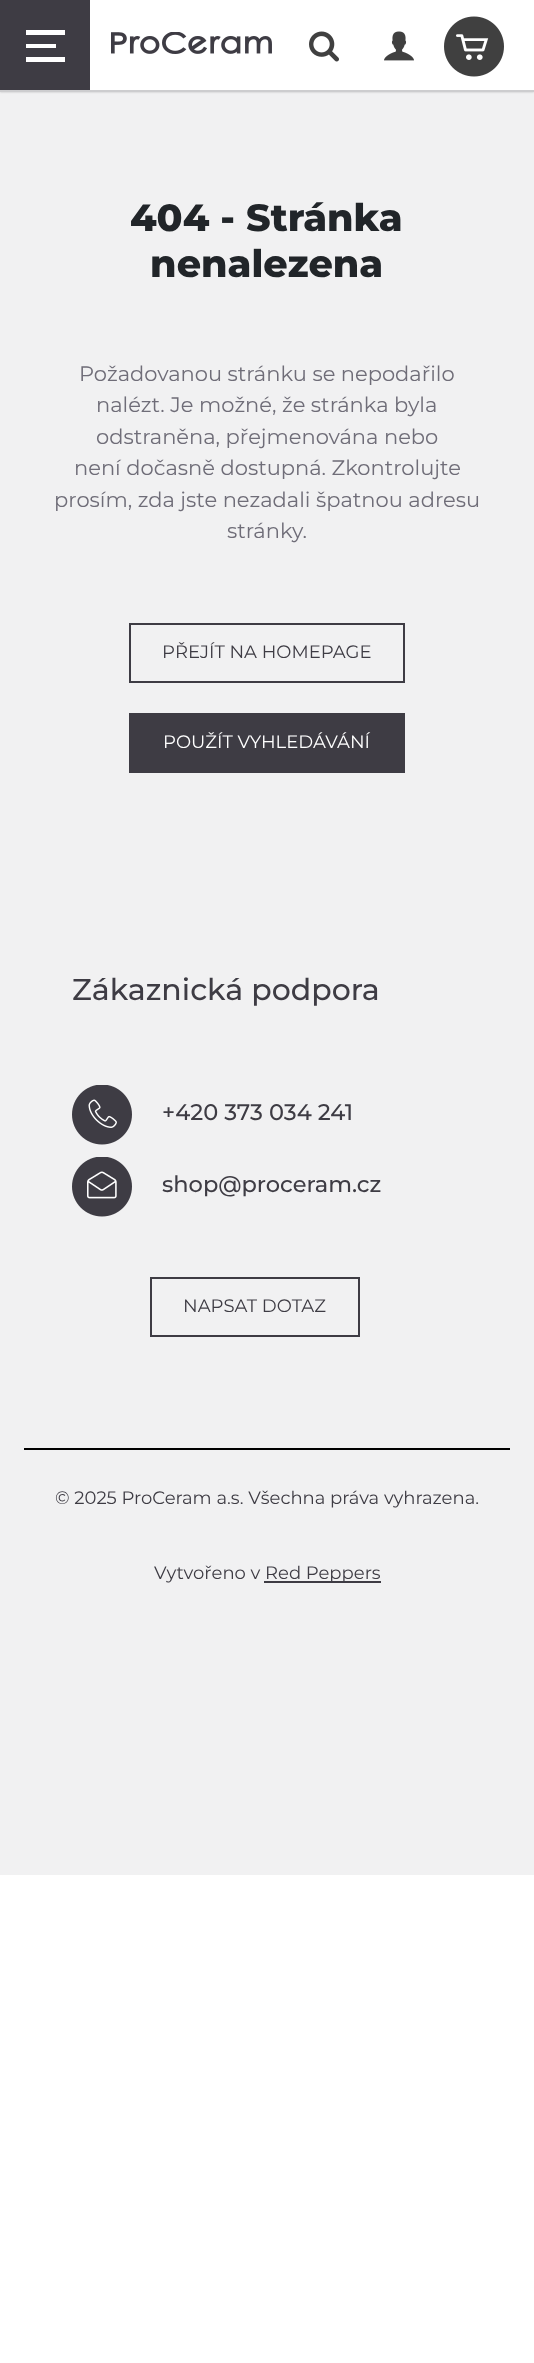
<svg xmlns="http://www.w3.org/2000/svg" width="534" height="2363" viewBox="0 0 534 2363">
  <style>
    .t1 { font: 800 38px Montserrat; fill: #212529; }
    .t2 { font: 21px Montserrat; fill: #6f6d78; }
    .t3 { font: 18px Montserrat; fill: #3e3c44; }
    .t4 { font: 18px Montserrat; fill: #fff; }
    .t5 { font: 500 30px Montserrat; fill: #3e3c44; }
    .t6 { font: 500 22.5px Montserrat; fill: #3e3c44; }
  </style>
  <rect width="100%" height="100%" fill="#fff"/>
  <rect x="0" y="92" width="534" height="1783" fill="#f1f1f2"/>
  <rect x="0" y="0" width="534" height="92" fill="#00000033" filter="blur(1px)"/>
  <rect x="90" y="0" width="444" height="90" fill="#fff"/>
  <rect x="0" y="90" width="534" height="2" fill="#cdcdcf"/>
  <rect x="0" y="0" width="90" height="90" fill="#3e3c44"/>
  <rect x="26" y="30" width="39" height="5" fill="#fff"/>
  <rect x="26" y="44" width="30" height="4" fill="#fff"/>
  <rect x="26" y="57" width="39" height="5" fill="#fff"/>
  <image x="111" y="32" width="161" height="22" href="images/1.png"/>
  <image x="309" y="31" width="30" height="31" href="images/2.png"/>
  <image x="384" y="31" width="30" height="30" href="images/3.png"/>
  <image x="444" y="16" width="60" height="61" href="images/4.png"/>
  <text x="130" y="231" class="t1">404 - Stránka</text>
  <text x="150" y="277" class="t1">nenalezena</text>
  <text x="79" y="381" class="t2">Požadovanou stránku se nepodařilo</text>
  <text x="96" y="412" class="t2">nalézt. Je možné, že stránka byla</text>
  <text x="96" y="444" class="t2">odstraněna, přejmenována nebo</text>
  <text x="74" y="475" class="t2">není dočasně dostupná. Zkontrolujte</text>
  <text x="54" y="507" class="t2">prosím, zda jste nezadali špatnou adresu</text>
  <text x="227" y="538" class="t2">stránky.</text>
  <rect x="130" y="624" width="274" height="58" fill="none" stroke="#3e3c44" stroke-width="2"/>
  <text x="162" y="658" class="t3">PŘEJÍT NA HOMEPAGE</text>
  <rect x="129" y="713" width="276" height="60" fill="#3e3c44"/>
  <text x="163" y="748" class="t4">POUŽÍT VYHLEDÁVÁNÍ</text>
  <text x="72" y="1000" class="t5">Zákaznická podpora</text>
  <image x="72" y="1085" width="60" height="60" href="images/5.png"/>
  <text x="162" y="1120" class="t6">+420 373 034 241</text>
  <image x="72" y="1157" width="60" height="60" href="images/6.png"/>
  <text x="162" y="1192" class="t6">shop@proceram.cz</text>
  <rect x="151" y="1278" width="208" height="58" fill="none" stroke="#3e3c44" stroke-width="2"/>
  <text x="183" y="1312" class="t3">NAPSAT DOTAZ</text>
  <rect x="24" y="1448" width="486" height="2" fill="#000"/>
  <text x="55" y="1504" class="t3">© 2025 ProCeram a.s. Všechna práva vyhrazena.</text>
  <text x="154" y="1579" class="t3">Vytvořeno v</text>
  <rect x="264" y="1581" width="117" height="2" fill="#3e3c44"/>
  <text x="265" y="1579" class="t3">Red Peppers</text>
</svg>
